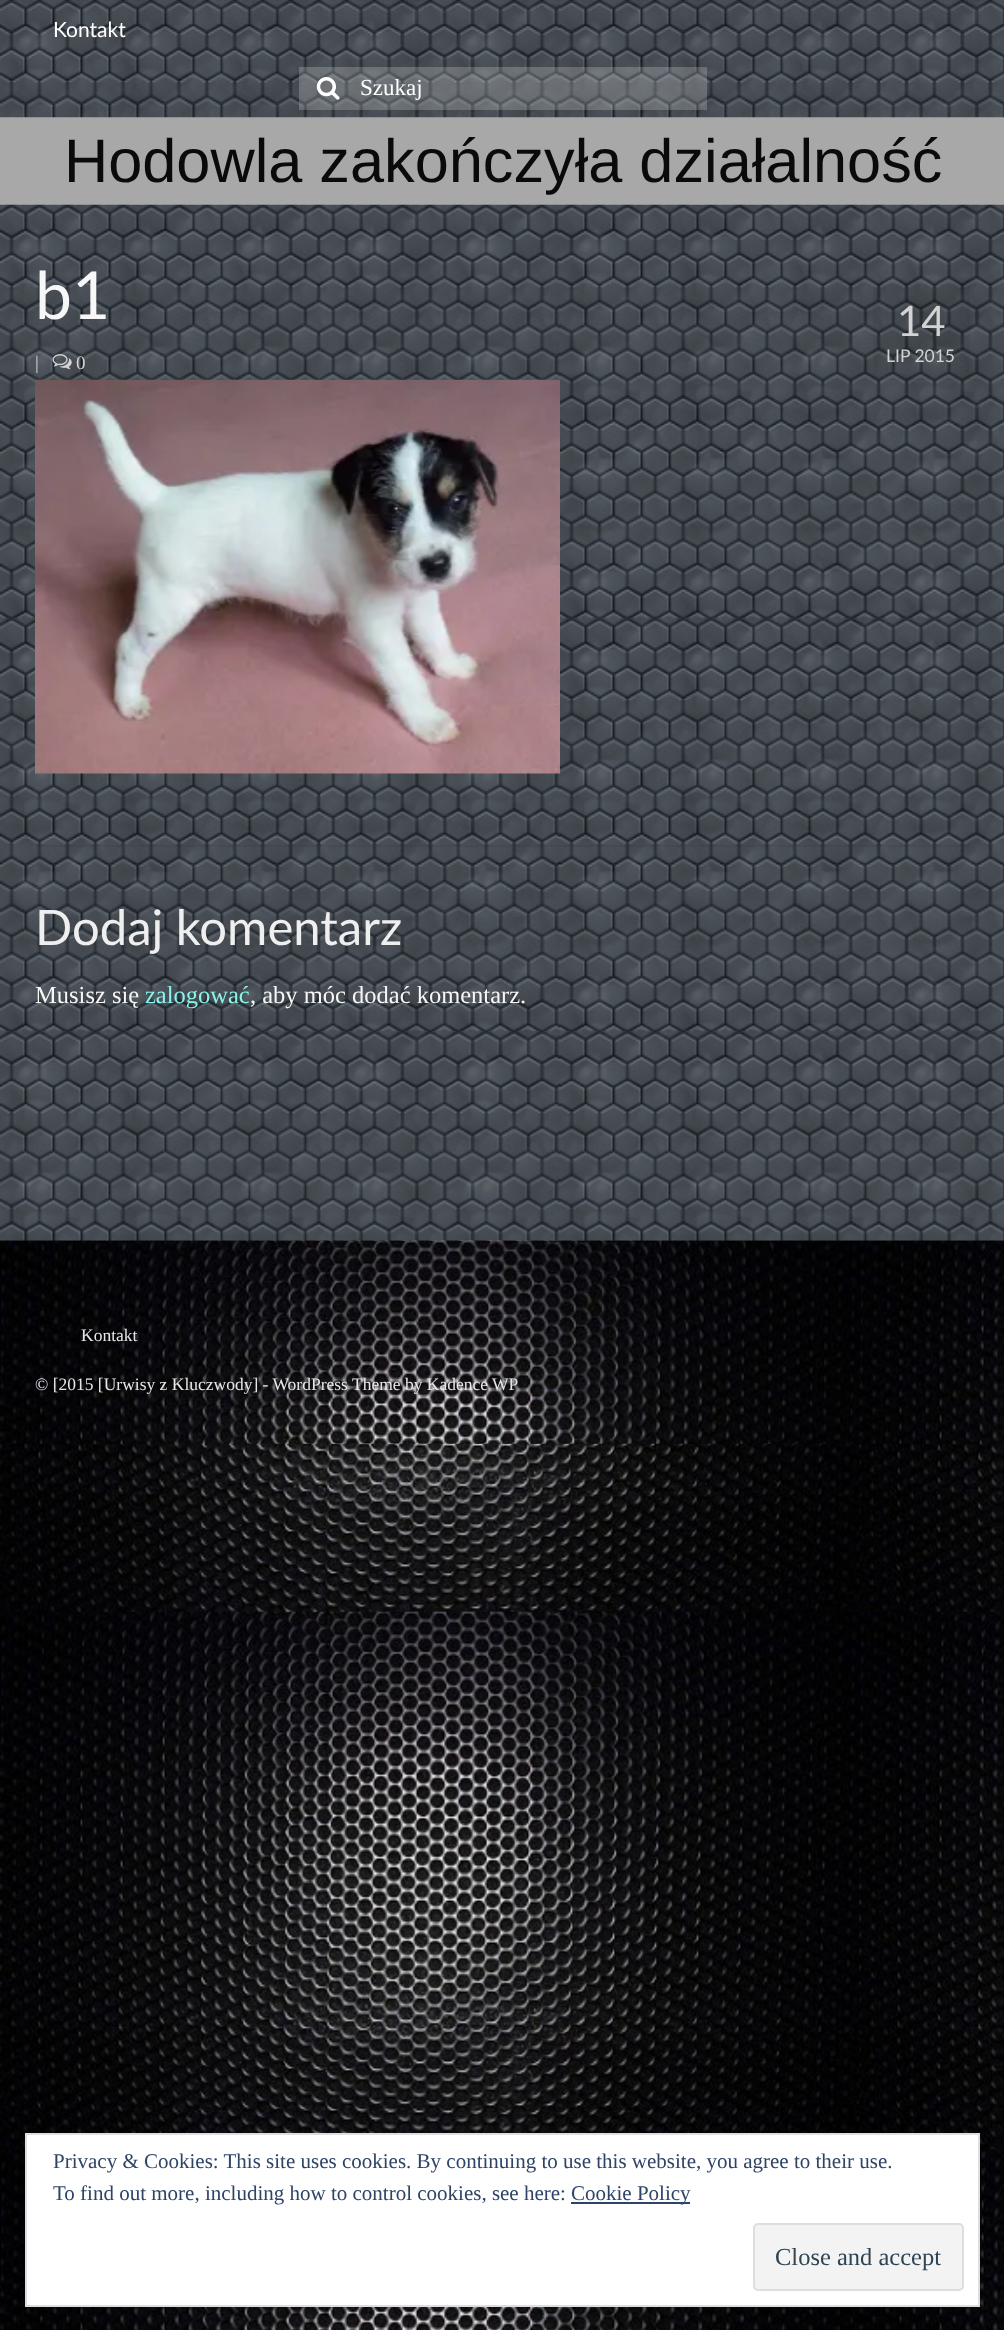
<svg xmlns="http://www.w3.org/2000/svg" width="1004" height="2330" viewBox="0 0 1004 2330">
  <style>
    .t1 { font: 21px Lato; fill: #fff; }
    .t2 { font: 23px Liberation Serif; fill: #fff; }
    .t3 { font: 61.25px Liberation Sans; fill: #0a0a0a; }
    .t4 { font: 66px Lato; fill: #f7f7f7; }
    .t5 { font: 19px Liberation Serif; fill: #d3d3d3; }
    .t6 { font: 42px Lato; fill: #d3d3d3; }
    .t7 { font: 17.5px Lato; fill: #d3d3d3; }
    .t8 { font: 49px Lato; fill: #efefef; }
    .t9 { font: 24.5px Liberation Serif; fill: #f7f7f7; }
    .t10 { font: 24.5px Liberation Serif; fill: #89f4eb; }
    .t11 { font: 17.5px Liberation Serif; fill: #e8e8e8; }
    .t12 { font: 21px Liberation Serif; fill: #2e4467; }
    .t13 { font: 24.5px Liberation Serif; fill: #2e4453; }
  </style>
  <rect width="100%" height="100%" fill="#fff"/>
  <image x="0" y="1240" width="1004" height="1090" href="images/1.png"/>
  <rect x="0" y="117" width="1004" height="88" fill="#a8a8a8"/>
  <image x="0" y="0" width="1004" height="118" href="images/2.png"/>
  <text x="53" y="37" class="t1">Kontakt</text>
  <rect x="299" y="67" width="408" height="43" fill="#ffffff33"/>
  <image x="316" y="77" width="24" height="23" href="images/3.png"/>
  <text x="360" y="95" class="t2">Szukaj</text>
  <text x="64" y="182" class="t3">Hodowla zakończyła działalność</text>
  <image x="0" y="204" width="1004" height="1037" href="images/4.png"/>
  <text x="35" y="319" class="t4">b1</text>
  <text x="35" y="369" class="t5">|</text>
  <image x="52" y="354" width="20" height="16" href="images/5.png"/>
  <text x="76" y="369" class="t5">0</text>
  <rect x="873" y="284" width="97" height="96" fill="#0000000d"/>
  <text x="897" y="336" class="t6">14</text>
  <text x="886" y="362" class="t7">LIP 2015</text>
  <image x="35" y="379" width="525" height="395" href="images/6.png"/>
  <rect x="35" y="845" width="935" height="2" fill="#0000000d"/>
  <text x="35" y="945" class="t8">Dodaj komentarz</text>
  <text x="35" y="1003" class="t9">Musisz się</text>
  <text x="145" y="1003" class="t10">zalogować</text>
  <text x="250" y="1003" class="t9">, aby móc dodać komentarz.</text>
  <image x="0" y="1240" width="1004" height="204" href="images/7.png"/>
  <text x="81" y="1341" class="t11">Kontakt</text>
  <text x="35" y="1390" class="t11">© [2015 [Urwisy z Kluczwody] - WordPress Theme by Kadence WP</text>
  <rect x="26" y="2134" width="953" height="172" fill="#fff" stroke="#dedede" stroke-width="2"/>
  <text x="53" y="2168" class="t12">Privacy &amp; Cookies: This site uses cookies. By continuing to use this website, you agree to their use.</text>
  <text x="53" y="2200" class="t12">To find out more, including how to control cookies, see here:</text>
  <rect x="571" y="2202" width="119" height="2" fill="#2e4467"/>
  <text x="571" y="2200" class="t12">Cookie Policy</text>
  <rect x="754" y="2224" width="209" height="66" rx="4" fill="#f3f3f3" stroke="#dedede" stroke-width="2"/>
  <text x="775" y="2265" class="t13">Close and accept</text>
</svg>
